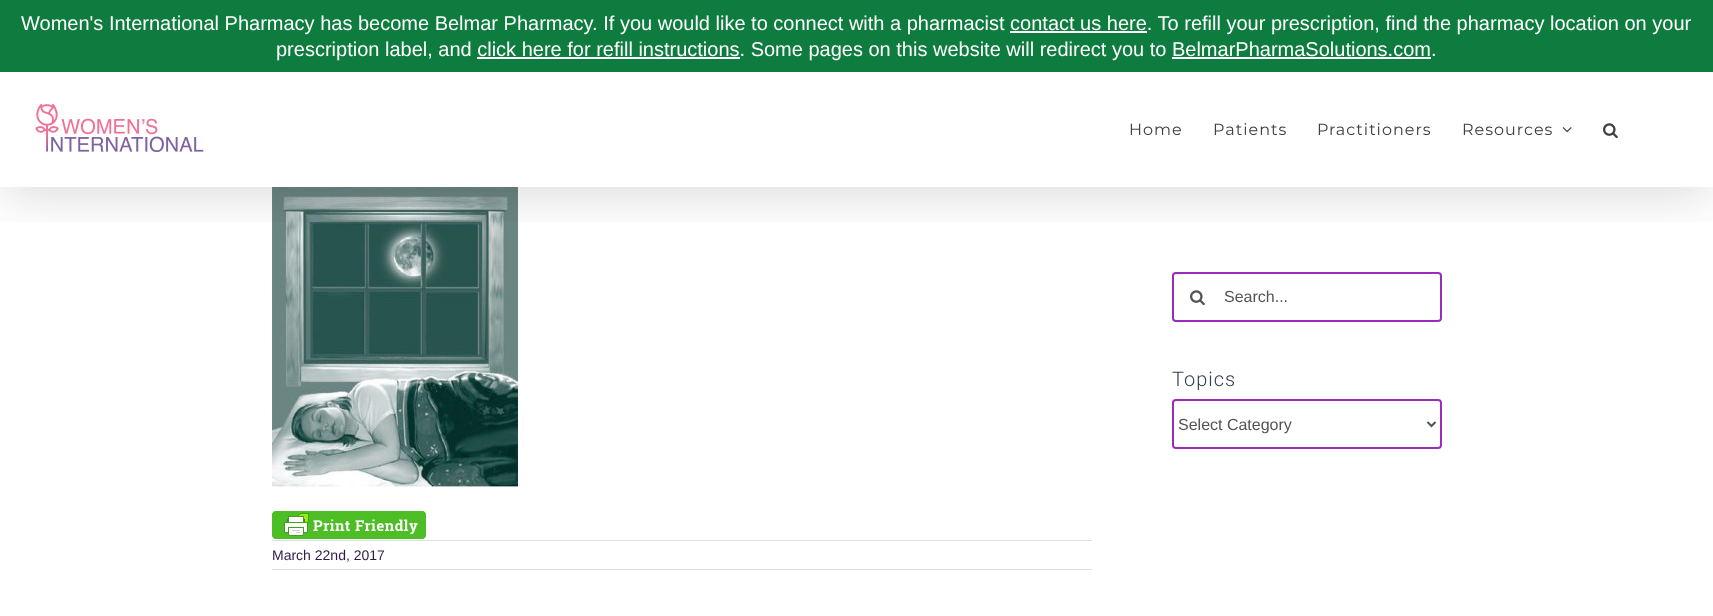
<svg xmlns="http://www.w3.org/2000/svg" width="1713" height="616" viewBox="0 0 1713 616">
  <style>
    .t1 { font: 20px Liberation Sans; fill: #fff; }
    .t2 { font: 100 16px Montserrat; letter-spacing: 1px; fill: #404040; }
    .t3 { font: 16px Liberation Sans; fill: #545454; }
    .t4 { font: 300 20px Roboto; letter-spacing: 1px; fill: #333c4e; }
    .t5 { font: 14px Liberation Sans; fill: #2e1a47; }
  </style>
  <defs>
    <clipPath id="clip1"><rect x="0" y="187" width="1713" height="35"/></clipPath>
  </defs>
  <rect width="100%" height="100%" fill="#fff"/>
  <image x="272" y="187" width="246" height="300" href="images/5.png"/>
  <g clip-path="url(#clip1)">
    <rect x="2" y="84" width="1709" height="111" fill="#00000024" filter="blur(25px)"/>
  </g>
  <rect x="0" y="0" width="1713" height="72" fill="#0e7c3f"/>
  <text x="21" y="30" class="t1">Women's International Pharmacy has become Belmar Pharmacy. If you would like to connect with a pharmacist contact us here. To refill your prescription, find the pharmacy location on your</text>
  <rect x="1010" y="31" width="137" height="2" fill="#fff"/>
  <text x="276" y="56" class="t1">prescription label, and click here for refill instructions. Some pages on this website will redirect you to BelmarPharmaSolutions.com.</text>
  <rect x="477" y="57" width="263" height="2" fill="#fff"/>
  <rect x="1172" y="57" width="259" height="2" fill="#fff"/>
  <image x="35" y="104" width="169" height="48" href="images/1.png"/>
  <text x="1129" y="135" class="t2">Home</text>
  <text x="1213" y="135" class="t2">Patients</text>
  <text x="1317" y="135" class="t2">Practitioners</text>
  <text x="1462" y="135" class="t2">Resources</text>
  <image x="1562" y="127" width="10" height="6" href="images/2.png"/>
  <image x="1603" y="123" width="15" height="16" href="images/3.png"/>
  <rect x="1173" y="273" width="268" height="48" rx="3" fill="none" stroke="#9b2bbd" stroke-width="2"/>
  <image x="1190" y="290" width="15" height="16" href="images/4.png"/>
  <text x="1224" y="302" class="t3">Search...</text>
  <text x="1172" y="386" class="t4">Topics</text>
  <rect x="1173" y="400" width="268" height="48" rx="3" fill="none" stroke="#9b2bbd" stroke-width="2"/>
  <path d="M1427.5 422L1431.5 426L1435.5 422" fill="none" stroke="#545454" stroke-width="2"/>
  <text x="1178" y="430" class="t3">Select Category</text>
  <image x="272" y="511" width="154" height="28" href="images/6.png"/>
  <rect x="272" y="540" width="820" height="1" fill="#e0dede"/>
  <rect x="272" y="569" width="820" height="1" fill="#e0dede"/>
  <text x="272" y="560" class="t5">March 22nd, 2017</text>
</svg>
